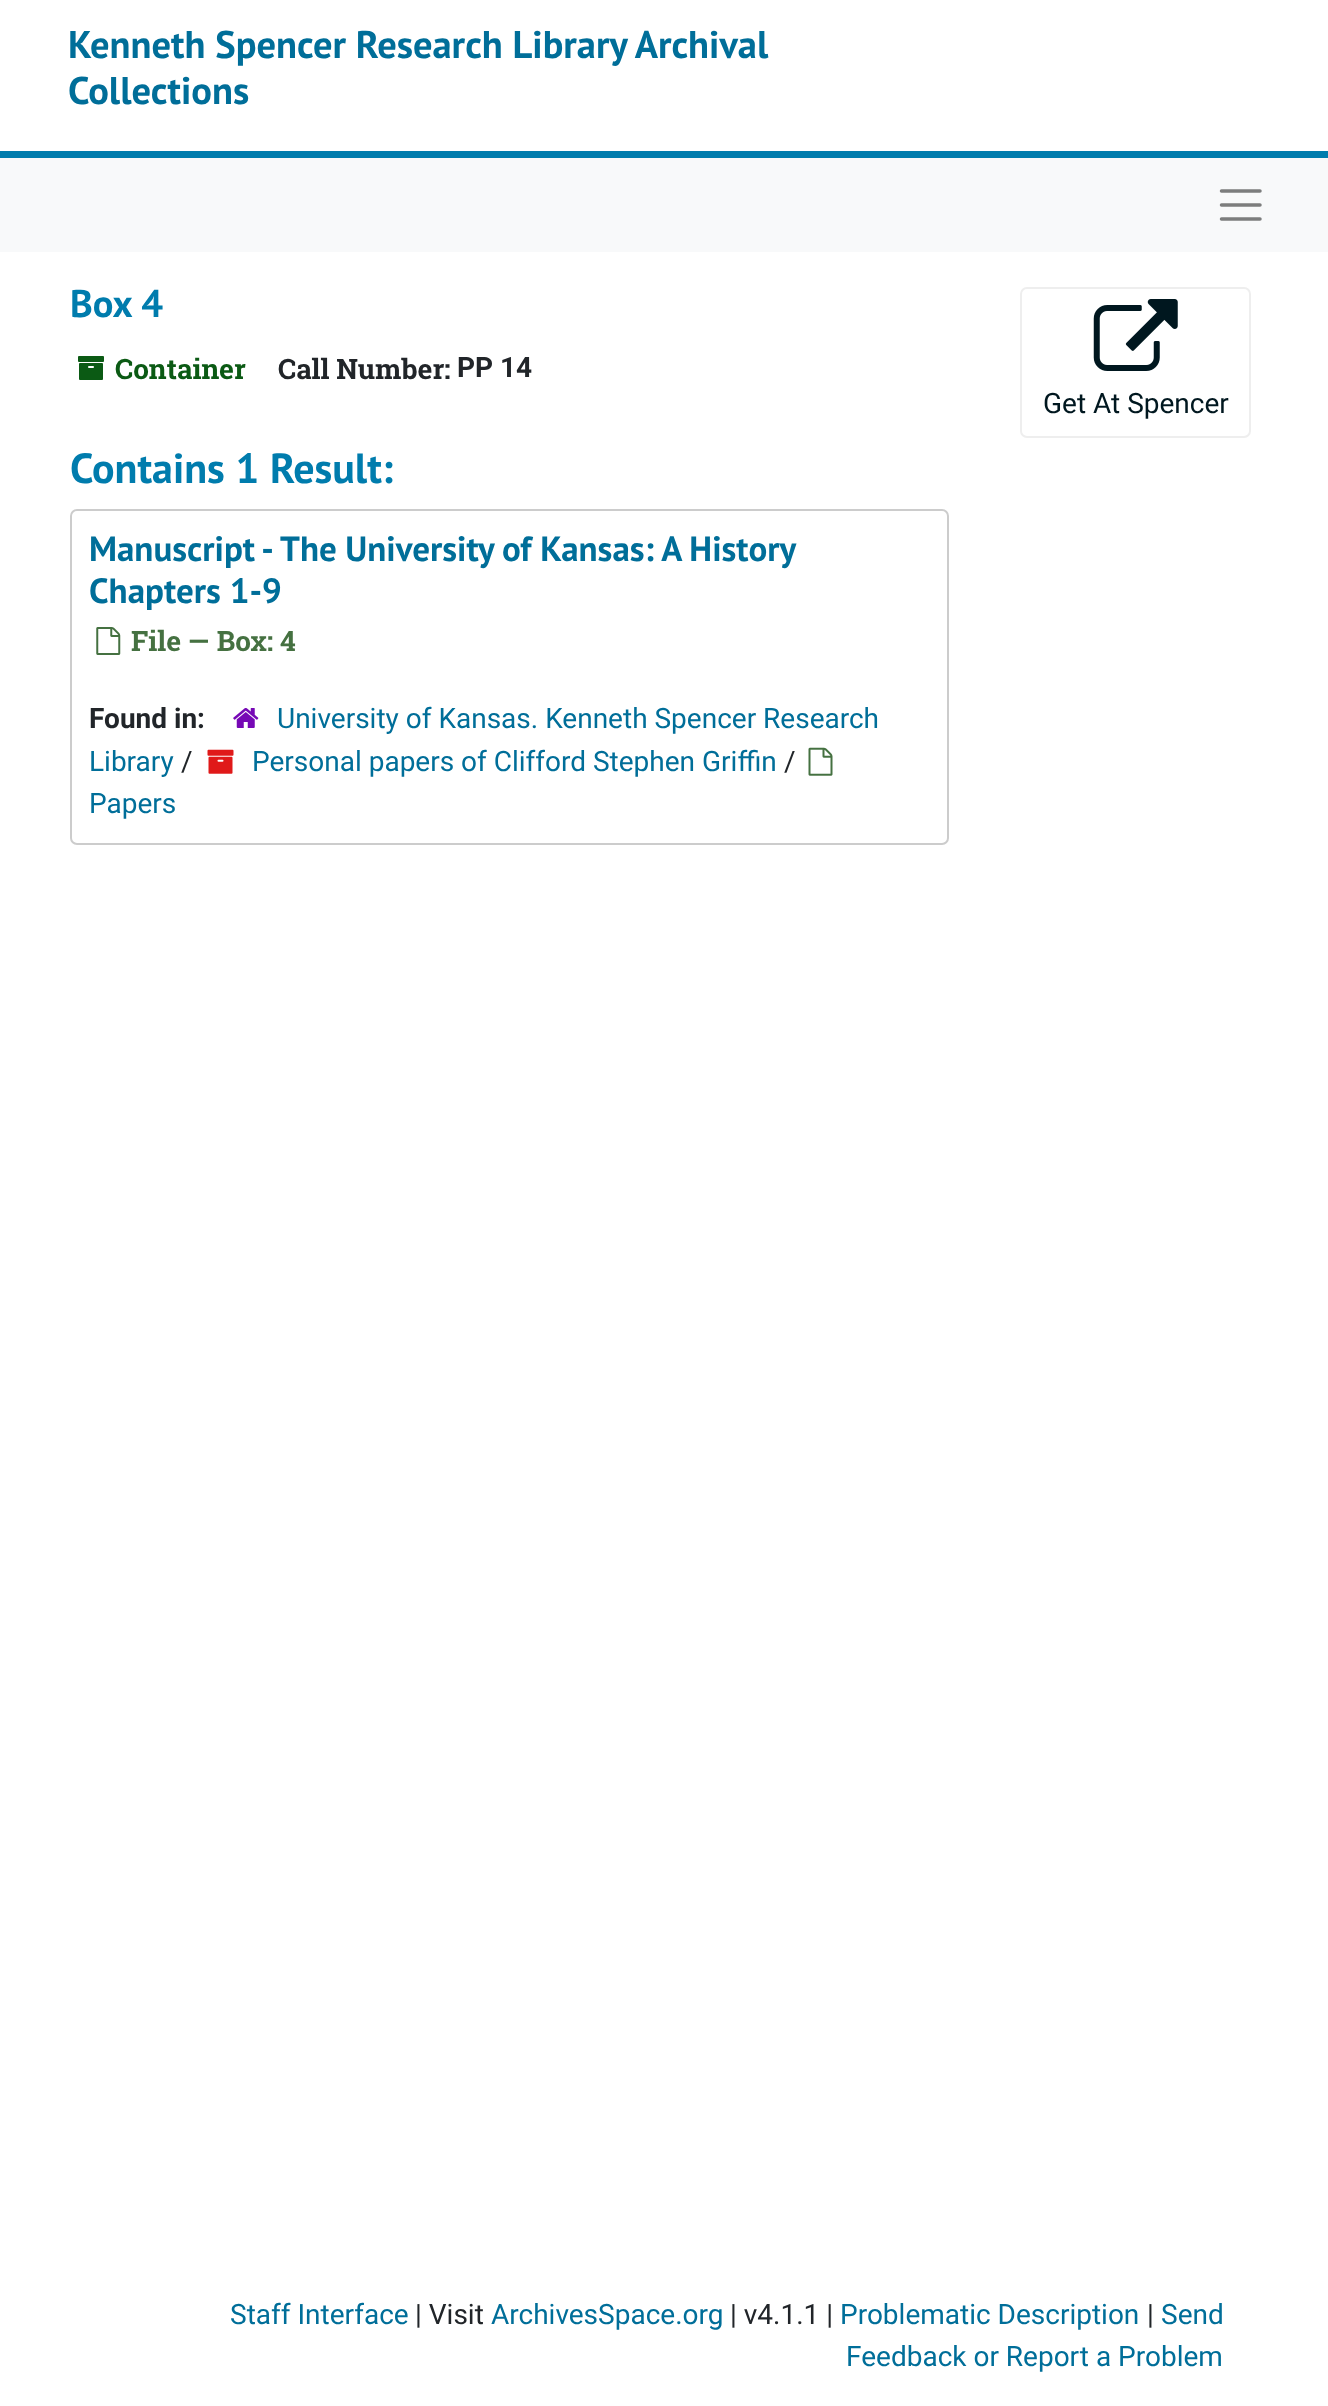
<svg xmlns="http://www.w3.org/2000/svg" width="1328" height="2406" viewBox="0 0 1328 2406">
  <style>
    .t1 { font: bold 38.5px PT Sans; fill: #006e99; }
    .t2 { font: bold 38.5px PT Sans; fill: #007cad; }
    .t3 { font: bold 28px Roboto Slab; fill: #0b5a14; }
    .t4 { font: bold 28px Roboto Slab; fill: #212529; }
    .t5 { font: bold 28px Roboto; fill: #212529; }
    .t6 { font: 28px Roboto; fill: #00171f; }
    .t7 { font: bold 42px PT Sans; fill: #007cad; }
    .t8 { font: bold 35px PT Sans; fill: #006e99; }
    .t9 { font: bold 28px Roboto Slab; fill: #457141; }
    .t10 { font: 28px Roboto; fill: #006e99; }
    .t11 { font: 28px Roboto; fill: #212529; }
  </style>
  <rect width="100%" height="100%" fill="#fff"/>
  <rect x="0" y="151" width="1328" height="7" fill="#007cad"/>
  <text x="68" y="58" class="t1">Kenneth Spencer Research Library Archival</text>
  <text x="68" y="104" class="t1">Collections</text>
  <rect x="0" y="158" width="1328" height="94" fill="#f8f9fa"/>
  <path d="M1221.5 191H1260M1221.5 205H1260M1221.5 219H1260" fill="none" stroke="#7c7d7d" stroke-width="3.5" stroke-linecap="round"/>
  <text x="70" y="317" class="t2">Box 4</text>
  <image x="78" y="356" width="26" height="24" href="images/1.png"/>
  <text x="115" y="379" class="t3">Container</text>
  <text x="278" y="379" class="t4">Call Number:</text>
  <text x="457" y="377" class="t5">PP 14</text>
  <rect x="1021" y="288" width="229" height="149" rx="6" fill="none" stroke="#eee" stroke-width="2"/>
  <image x="1093" y="299" width="85" height="72" href="images/2.png"/>
  <text x="1043" y="413" class="t6">Get At Spencer</text>
  <text x="70" y="483" class="t7">Contains 1 Result:</text>
  <rect x="71" y="510" width="877" height="334" rx="6" fill="none" stroke="#ccc" stroke-width="2"/>
  <text x="89" y="561" word-spacing="-1" class="t8">Manuscript -</text>
  <text x="280" y="561" word-spacing="-0.25" class="t8">The University of Kansas: A History</text>
  <text x="89" y="603" class="t8">Chapters 1-9</text>
  <image x="96" y="627" width="25" height="28" href="images/3.png"/>
  <text x="131" y="651" class="t9">File — Box: 4</text>
  <image x="233" y="708" width="26" height="20" href="images/4.png"/>
  <text x="277" y="728" class="t10">University of Kansas. Kenneth Spencer Research</text>
  <text x="89" y="771" class="t10">Library</text>
  <text x="89" y="728" class="t5">Found in:</text>
  <text x="181" y="771" class="t11">/</text>
  <image x="207" y="749" width="27" height="25" href="images/5.png"/>
  <text x="252" y="771" class="t10">Personal papers of Clifford Stephen Griffin</text>
  <text x="784" y="771" class="t11">/</text>
  <image x="808" y="747" width="25" height="29" href="images/6.png"/>
  <text x="89" y="813" class="t10">Papers</text>
  <text x="230" y="2324" class="t10">Staff Interface</text>
  <text x="415" y="2324" class="t11">| Visit</text>
  <text x="491" y="2324" class="t10">ArchivesSpace.org</text>
  <text x="730" y="2324" class="t11">| v4.1.1 |</text>
  <text x="840" y="2324" class="t10">Problematic Description</text>
  <text x="1147" y="2324" class="t11">|</text>
  <text x="1161" y="2324" class="t10">Send</text>
  <text x="846" y="2366" class="t10">Feedback or Report a Problem</text>
</svg>
